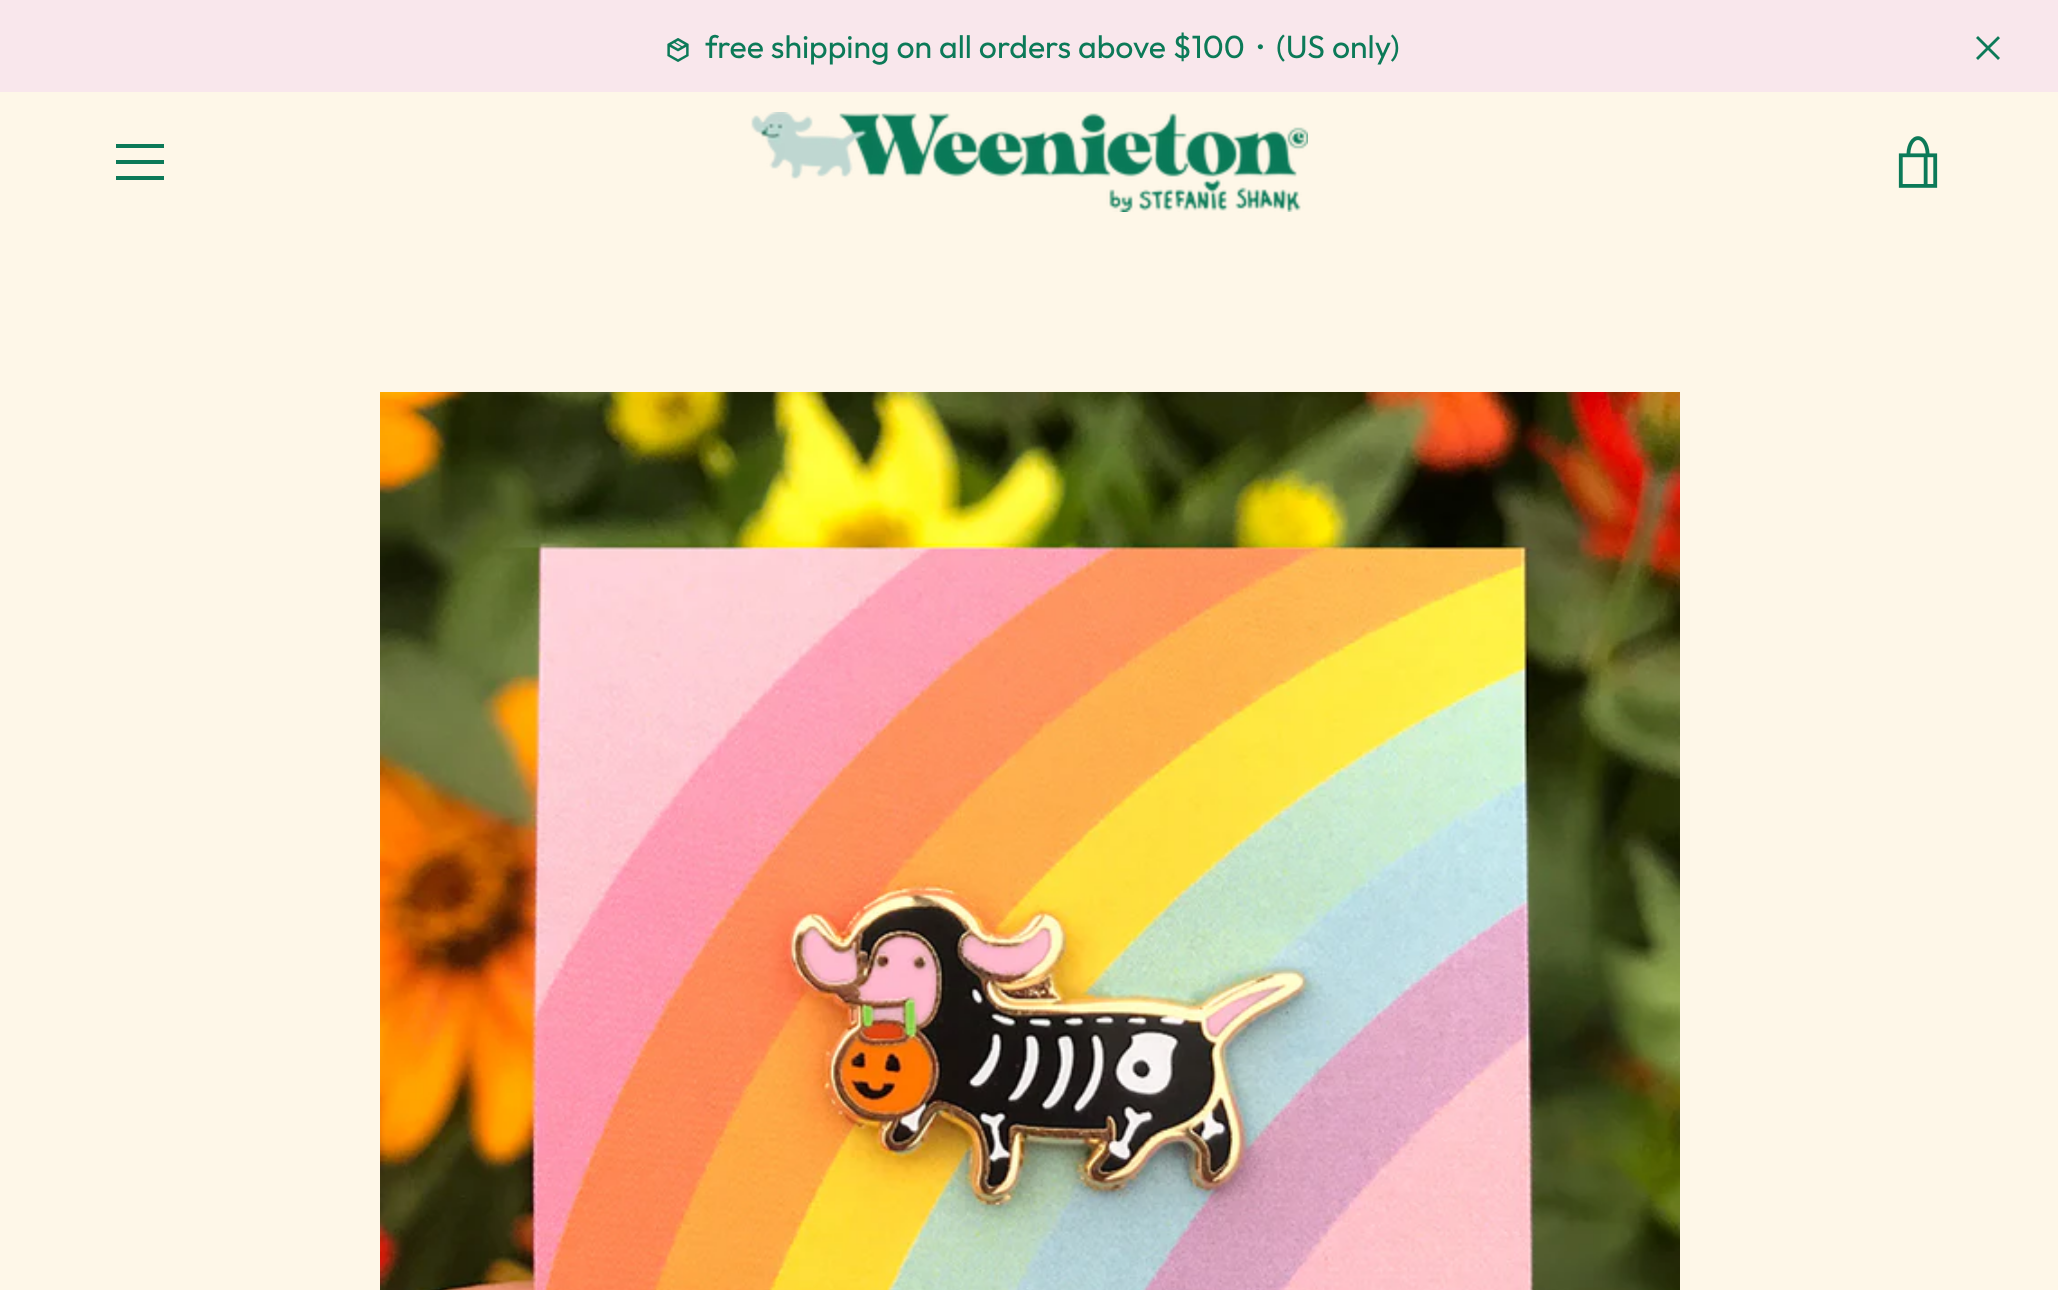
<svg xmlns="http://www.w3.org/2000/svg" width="2058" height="1290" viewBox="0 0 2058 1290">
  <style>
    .t1 { font: 32px Outfit; fill: #0c7a58; }
    .t2 { font: 500 32px WenQuanYi Zen Hei; fill: #0c7a58; }
  </style>
  <rect width="100%" height="100%" fill="#fef7e8"/>
  <rect x="0" y="0" width="2058" height="92" fill="#f9e7ec"/>
  <image x="667" y="38" width="22" height="24" href="images/1.png"/>
  <text x="705" y="58" word-spacing="0.25" class="t1">free shipping on all orders above $100</text>
  <text x="1244" y="58" class="t2">・</text>
  <text x="1276" y="58" word-spacing="0.25" class="t1">(US only)</text>
  <image x="1976" y="36" width="24" height="24" href="images/2.png"/>
  <rect x="116" y="144" width="48" height="4" fill="#0c7a58"/>
  <rect x="116" y="160" width="48" height="4" fill="#0c7a58"/>
  <rect x="116" y="176" width="48" height="4" fill="#0c7a58"/>
  <image x="751" y="112" width="557" height="100" href="images/3.png"/>
  <image x="1898" y="136" width="40" height="52" href="images/4.png"/>
  <image x="380" y="392" width="1300" height="898" href="images/5.png"/>
</svg>
